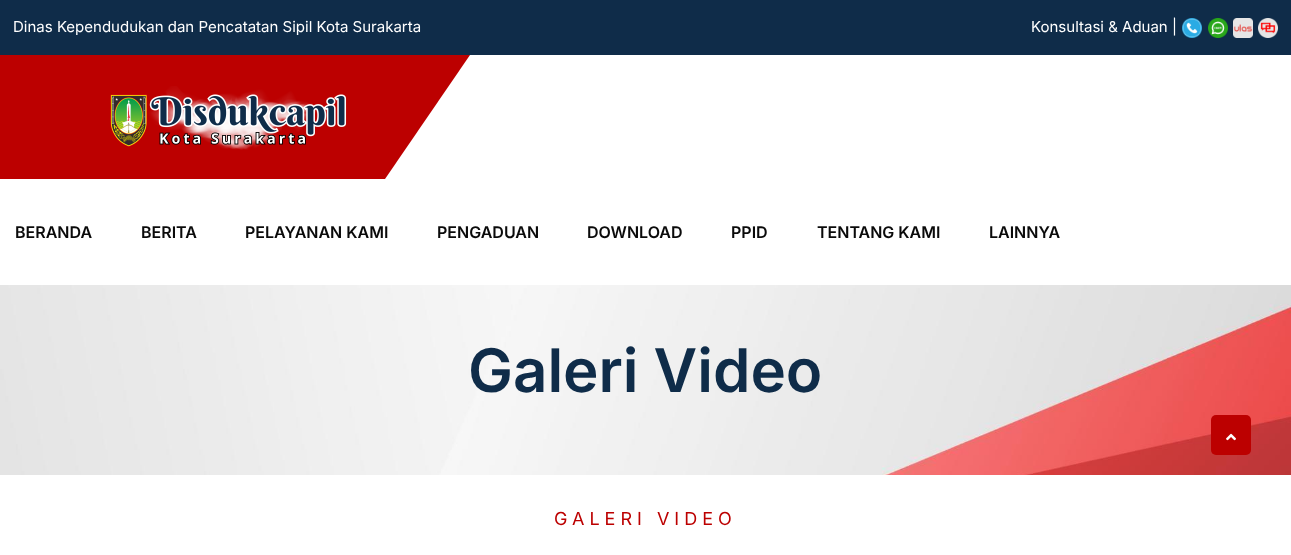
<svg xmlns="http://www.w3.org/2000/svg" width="1291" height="555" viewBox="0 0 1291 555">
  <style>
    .t1 { font: 15px Inter; fill: #fff; }
    .t2 { font: 600 16px Inter; fill: #0a0a0a; }
    .t3 { font: 600 60px Inter; fill: #0f2c49; }
    .t4 { font: 18px Inter; letter-spacing: 5px; fill: #bc0000; }
  </style>
  <rect width="100%" height="100%" fill="#fff"/>
  <rect x="0" y="0" width="1291" height="55" fill="#0f2c49"/>
  <text x="13" y="32" class="t1">Dinas Kependudukan dan Pencatatan Sipil Kota Surakarta</text>
  <text x="1031" y="32" class="t1">Konsultasi &amp; Aduan |</text>
  <image x="1182" y="18" width="20" height="20" href="images/1.png"/>
  <image x="1208" y="18" width="20" height="20" href="images/2.png"/>
  <image x="1233" y="18" width="20" height="20" href="images/3.png"/>
  <image x="1258" y="18" width="20" height="20" href="images/4.png"/>
  <path d="M0 55V179H385L470 55Z" fill="#bc0000"/>
  <image x="110" y="86" width="237" height="64" href="images/5.png"/>
  <text x="15" y="238" class="t2">BERANDA</text>
  <text x="141" y="238" class="t2">BERITA</text>
  <text x="245" y="238" class="t2">PELAYANAN KAMI</text>
  <text x="437" y="238" class="t2">PENGADUAN</text>
  <text x="587" y="238" class="t2">DOWNLOAD</text>
  <text x="731" y="238" class="t2">PPID</text>
  <text x="817" y="238" class="t2">TENTANG KAMI</text>
  <text x="989" y="238" class="t2">LAINNYA</text>
  <image x="0" y="285" width="1291" height="190" href="images/6.png"/>
  <text x="468" y="392" class="t3">Galeri Video</text>
  <rect x="1211" y="415" width="40" height="40" rx="5" fill="#bc0000"/>
  <image x="1226" y="433" width="10" height="8" href="images/7.png"/>
  <text x="554" y="525" class="t4">GALERI VIDEO</text>
</svg>
